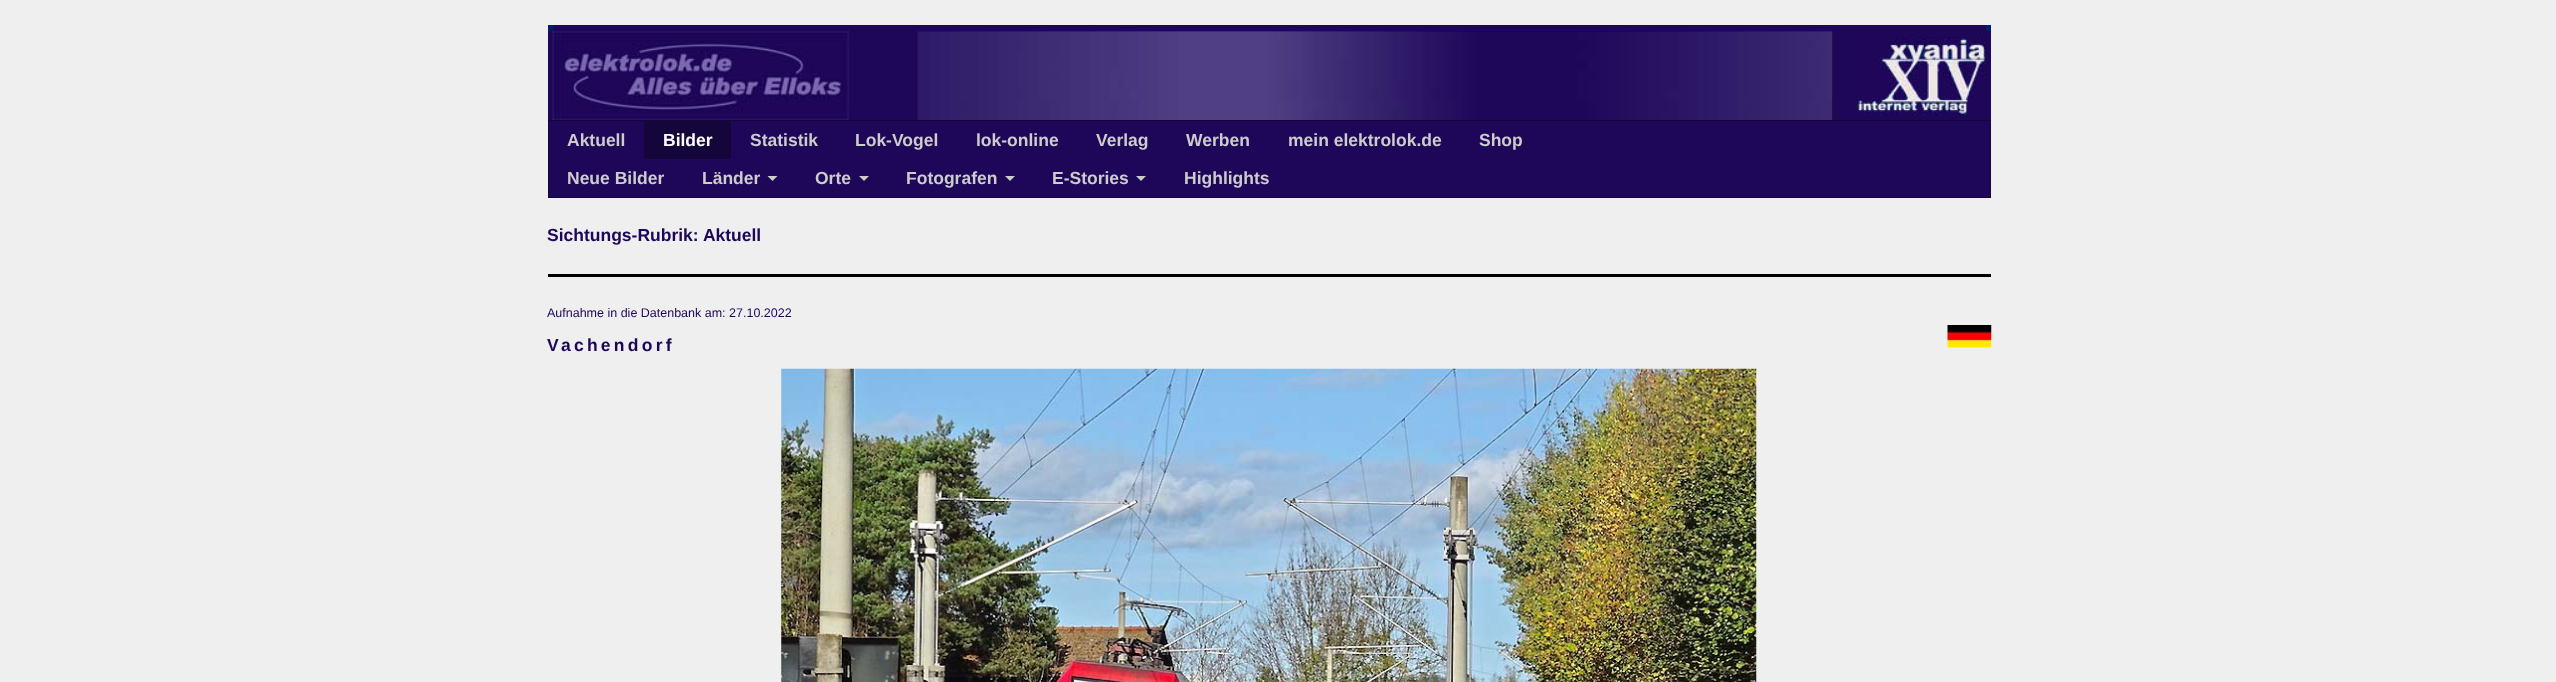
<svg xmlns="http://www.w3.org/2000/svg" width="2556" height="682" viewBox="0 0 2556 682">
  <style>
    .t1 { font: bold 17.5px Liberation Sans; fill: #ccc; }
    .t2 { font: bold 17.5px Liberation Sans; fill: #fff; }
    .t3 { font: bold 17.5px Liberation Sans; fill: #1e0759; }
    .t4 { font: 12.5px Liberation Sans; fill: #1e0759; }
    .t5 { font: bold 17.5px Liberation Sans; letter-spacing: 3.25px; fill: #1e0759; }
  </style>
  <rect width="100%" height="100%" fill="#efefef"/>
  <rect x="548" y="25" width="5" height="6" fill="#011f68"/>
  <rect x="553" y="25" width="1433" height="6" fill="#1e0759"/>
  <rect x="1986" y="25" width="5" height="6" fill="#011f68"/>
  <rect x="548" y="31" width="370" height="89" fill="#1e0759"/>
  <image x="552" y="31" width="297" height="89" href="images/1.png"/>
  <rect x="918" y="31" width="915" height="89" fill="#000"/>
  <image x="917" y="31" width="916" height="89" href="images/2.png"/>
  <rect x="1833" y="31" width="158" height="89" fill="#1e0759"/>
  <image x="1857" y="37" width="130" height="78" href="images/3.png"/>
  <rect x="548.5" y="120.5" width="1442" height="77" fill="#1e0759" stroke="#14053a"/>
  <text x="567" y="146" class="t1">Aktuell</text>
  <rect x="644" y="121" width="87" height="38" fill="#14053a"/>
  <text x="663" y="146" class="t2">Bilder</text>
  <text x="750" y="146" class="t1">Statistik</text>
  <text x="855" y="146" class="t1">Lok-Vogel</text>
  <text x="976" y="146" class="t1">lok-online</text>
  <text x="1096" y="146" class="t1">Verlag</text>
  <text x="1186" y="146" class="t1">Werben</text>
  <text x="1288" y="146" class="t1">mein elektrolok.de</text>
  <text x="1479" y="146" class="t1">Shop</text>
  <text x="567" y="184" class="t1">Neue Bilder</text>
  <text x="702" y="184" class="t1">Länder</text>
  <path d="M767.5 176H777.5L772.5 181Z" fill="#ccc"/>
  <text x="815" y="184" class="t1">Orte</text>
  <path d="M859 176H869L864 181Z" fill="#ccc"/>
  <text x="906" y="184" class="t1">Fotografen</text>
  <path d="M1005 176H1015L1010 181Z" fill="#ccc"/>
  <text x="1052" y="184" class="t1">E-Stories</text>
  <path d="M1136 176H1146L1141 181Z" fill="#ccc"/>
  <text x="1184" y="184" class="t1">Highlights</text>
  <text x="547" y="241" class="t3">Sichtungs-Rubrik: Aktuell</text>
  <rect x="548" y="274" width="1443" height="3" fill="#000"/>
  <text x="547" y="317" class="t4">Aufnahme in die Datenbank am: 27.10.2022</text>
  <text x="547" y="351" class="t5">Vachendorf</text>
  <image x="1947" y="325" width="45" height="23" href="images/4.png"/>
  <image x="781" y="368" width="976" height="314" href="images/5.png"/>
</svg>
